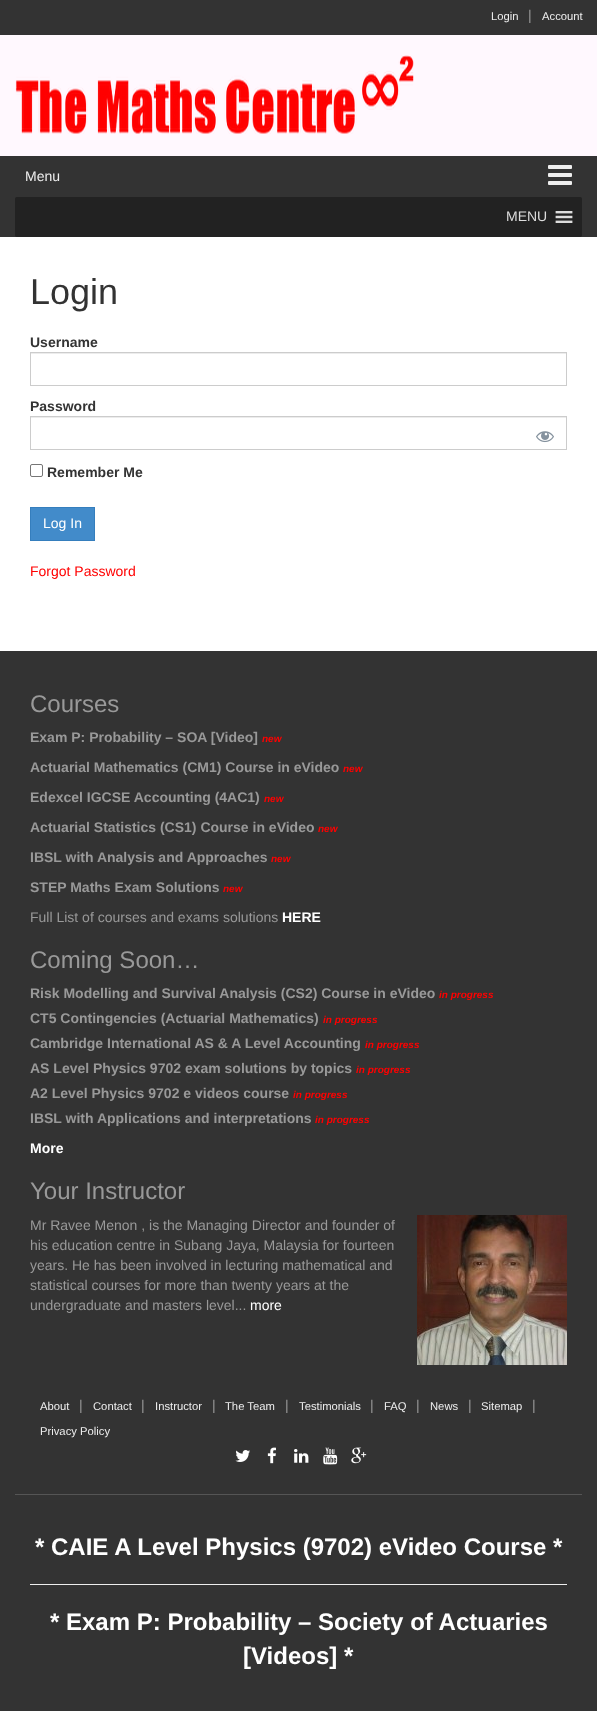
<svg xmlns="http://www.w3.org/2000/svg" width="597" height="1711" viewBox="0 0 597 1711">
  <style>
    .t1 { font: 11.25px Liberation Sans; fill: #eee; }
    .t2 { font: 14px Liberation Sans; fill: #999; }
    .t3 { font: 14px Liberation Sans; fill: #eee; }
    .t4 { font: 14px Liberation Sans; fill: #ddd; }
    .t5 { font: 36px Liberation Sans; fill: #333; }
    .t6 { font: bold 14px Liberation Sans; fill: #333; }
    .t7 { font: 14px Liberation Sans; fill: #fff; }
    .t8 { font: 14px Liberation Sans; fill: #f00; }
    .t9 { font: 24px Liberation Sans; fill: #999; }
    .t10 { font: bold 14px Liberation Sans; fill: #999; }
    .t11 { font: italic bold 10px Liberation Sans; fill: #f00; }
    .t12 { font: bold 14px Liberation Sans; fill: #fff; }
    .t13 { font: bold 24px Liberation Sans; fill: #fff; }
  </style>
  <rect width="100%" height="100%" fill="#fff8fe"/>
  <rect x="0" y="0" width="597" height="35" fill="#333"/>
  <text x="491" y="20" class="t1">Login</text>
  <text x="528" y="20" class="t2">|</text>
  <text x="542" y="20" class="t1">Account</text>
  <image x="15" y="55" width="399" height="79" href="images/1.png"/>
  <rect x="0" y="156" width="597" height="81" fill="#333"/>
  <text x="25" y="181" class="t3">Menu</text>
  <image x="548" y="165" width="24" height="20" href="images/2.png"/>
  <rect x="15" y="197" width="567" height="40" rx="2" fill="#222"/>
  <text x="506" y="221" class="t4">MENU</text>
  <image x="555" y="211" width="18" height="12" href="images/3.png"/>
  <rect x="0" y="237" width="597" height="414" fill="#fff"/>
  <text x="30" y="304" class="t5">Login</text>
  <text x="30" y="347" class="t6">Username</text>
  <rect x="31" y="353" width="535" height="1" fill="#ececec"/>
  <rect x="30.5" y="352.5" width="536" height="33" fill="none" stroke="#ccc"/>
  <text x="30" y="411" class="t6">Password</text>
  <rect x="31" y="417" width="535" height="1" fill="#ececec"/>
  <rect x="30.5" y="416.5" width="536" height="33" fill="none" stroke="#ccc"/>
  <image x="536" y="431" width="18" height="12" href="images/4.png"/>
  <rect x="30.5" y="464.5" width="12" height="12" rx="1.5" fill="none" stroke="#767676"/>
  <text x="47" y="477" class="t6">Remember Me</text>
  <rect x="30.5" y="507.5" width="64" height="33" fill="#428bca" stroke="#357ebd"/>
  <text x="43" y="528" class="t7">Log In</text>
  <text x="30" y="576" class="t8">Forgot Password</text>
  <rect x="0" y="651" width="597" height="1060" fill="#333"/>
  <text x="30" y="712" class="t9">Courses</text>
  <text x="30" y="742" class="t10">Exam P: Probability – SOA [Video]</text>
  <text x="262" y="742" class="t11">new</text>
  <text x="30" y="772" class="t10">Actuarial Mathematics (CM1) Course in eVideo</text>
  <text x="343" y="772" class="t11">new</text>
  <text x="30" y="802" class="t10">Edexcel IGCSE Accounting (4AC1)</text>
  <text x="264" y="802" class="t11">new</text>
  <text x="30" y="832" class="t10">Actuarial Statistics (CS1) Course in eVideo</text>
  <text x="318" y="832" class="t11">new</text>
  <text x="30" y="862" class="t10">IBSL with Analysis and Approaches</text>
  <text x="271" y="862" class="t11">new</text>
  <text x="30" y="892" class="t10">STEP Maths Exam Solutions</text>
  <text x="223" y="892" class="t11">new</text>
  <text x="30" y="922" class="t2">Full List of courses and exams solutions</text>
  <text x="282" y="922" class="t12">HERE</text>
  <text x="30" y="968" class="t9">Coming Soon…</text>
  <text x="30" y="998" class="t10">Risk Modelling and Survival Analysis (CS2) Course in eVideo</text>
  <text x="439" y="998" class="t11">in progress</text>
  <text x="30" y="1023" class="t10">CT5 Contingencies (Actuarial Mathematics)</text>
  <text x="323" y="1023" class="t11">in progress</text>
  <text x="30" y="1048" class="t10">Cambridge International AS &amp; A Level Accounting</text>
  <text x="365" y="1048" class="t11">in progress</text>
  <text x="30" y="1073" class="t10">AS Level Physics 9702 exam solutions by topics</text>
  <text x="356" y="1073" class="t11">in progress</text>
  <text x="30" y="1098" class="t10">A2 Level Physics 9702 e videos course</text>
  <text x="293" y="1098" class="t11">in progress</text>
  <text x="30" y="1123" class="t10">IBSL with Applications and interpretations</text>
  <text x="315" y="1123" class="t11">in progress</text>
  <text x="30" y="1153" class="t12">More</text>
  <text x="30" y="1199" class="t9">Your Instructor</text>
  <text x="30" y="1230" class="t2">Mr Ravee Menon , is the Managing Director and founder of</text>
  <image x="417" y="1215" width="150" height="150" href="images/5.png"/>
  <text x="30" y="1250" class="t2">his education centre in Subang Jaya, Malaysia for fourteen</text>
  <text x="30" y="1270" class="t2">years. He has been involved in lecturing mathematical and</text>
  <text x="30" y="1290" class="t2">statistical courses for more than twenty years at the</text>
  <text x="30" y="1310" class="t2">undergraduate and masters level...</text>
  <text x="250" y="1310" class="t7">more</text>
  <rect x="15" y="1494" width="567" height="1" fill="#555"/>
  <text x="40" y="1410" class="t1">About</text>
  <text x="79" y="1410" class="t2">|</text>
  <text x="93" y="1410" class="t1">Contact</text>
  <text x="141" y="1410" class="t2">|</text>
  <text x="155" y="1410" class="t1">Instructor</text>
  <text x="212" y="1410" class="t2">|</text>
  <text x="225" y="1410" class="t1">The Team</text>
  <text x="285" y="1410" class="t2">|</text>
  <text x="299" y="1410" class="t1">Testimonials</text>
  <text x="370" y="1410" class="t2">|</text>
  <text x="384" y="1410" class="t1">FAQ</text>
  <text x="416" y="1410" class="t2">|</text>
  <text x="430" y="1410" class="t1">News</text>
  <text x="468" y="1410" class="t2">|</text>
  <text x="481" y="1410" class="t1">Sitemap</text>
  <text x="532" y="1410" class="t2">|</text>
  <text x="40" y="1435" class="t1">Privacy Policy</text>
  <image x="235" y="1450" width="15" height="12" href="images/6.png"/>
  <image x="267" y="1447" width="9" height="17" href="images/7.png"/>
  <image x="294" y="1449" width="15" height="14" href="images/8.png"/>
  <image x="323" y="1447" width="15" height="18" href="images/9.png"/>
  <image x="351" y="1447" width="16" height="17" href="images/10.png"/>
  <text x="35" y="1555" class="t13">* CAIE A Level Physics (9702) eVideo Course *</text>
  <rect x="30" y="1584" width="537" height="1" fill="#eee"/>
  <text x="50" y="1630" class="t13">* Exam P: Probability – Society of Actuaries</text>
  <text x="243" y="1664" class="t13">[Videos] *</text>
</svg>
